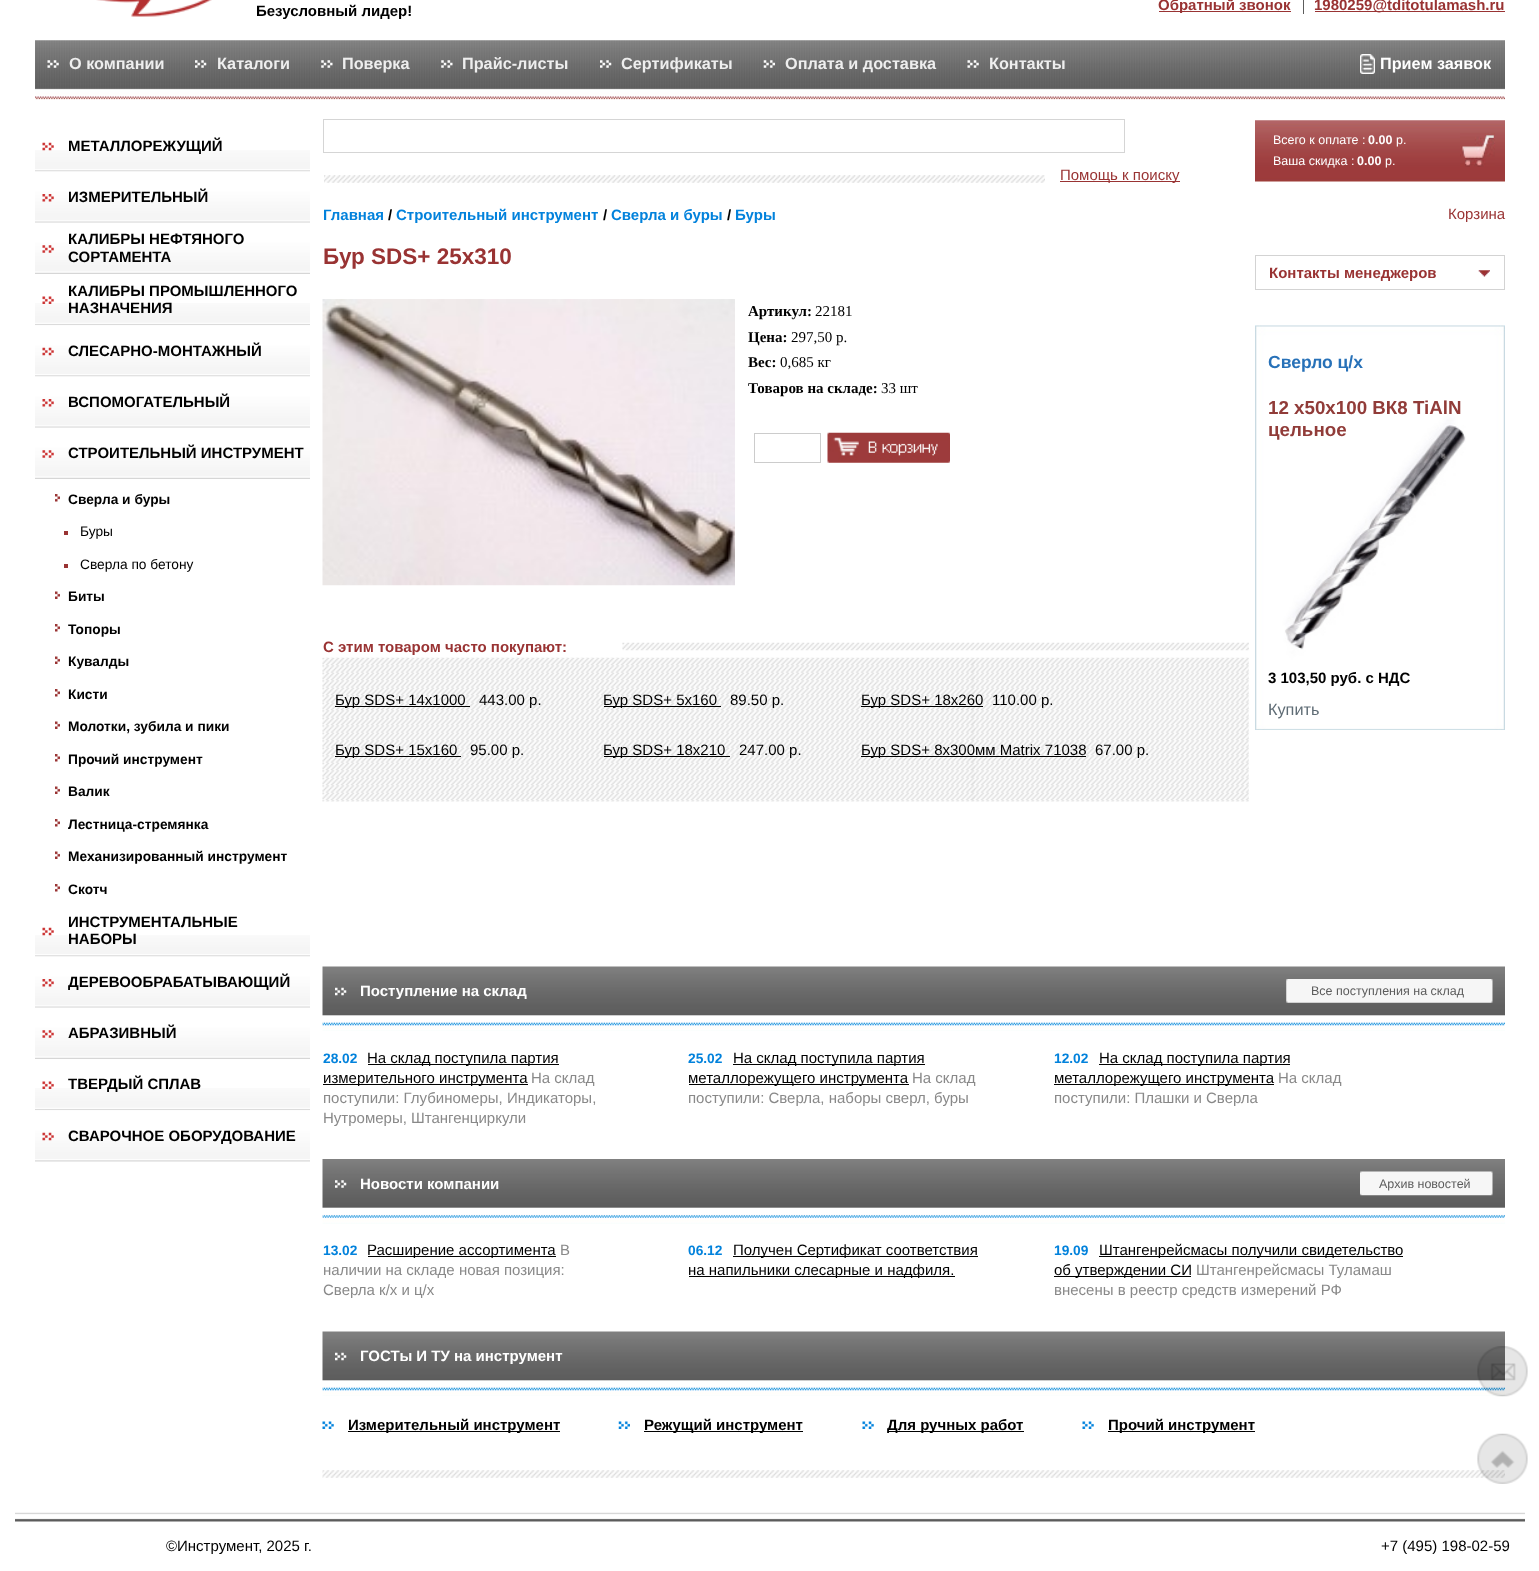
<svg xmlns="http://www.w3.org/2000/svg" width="1539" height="1571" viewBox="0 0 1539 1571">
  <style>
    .t1 { font: bold 15px Liberation Sans; fill: #000; }
    .t2 { font: bold 15px Liberation Sans; fill: #933; }
    .t3 { font: bold 16.25px Liberation Sans; fill: #eee; }
    .t4 { font: bold 16.25px Liberation Sans; fill: #fff; }
    .t5 { font: bold 13.75px Liberation Sans; fill: #000; }
    .t6 { font: 13.75px Liberation Sans; fill: #000; }
    .t7 { font: 15px Liberation Sans; fill: #933; }
    .t8 { font: 12.5px Liberation Sans; fill: #fff; }
    .t9 { font: bold 12.5px Liberation Sans; fill: #fff; }
    .t10 { font: bold 15px Liberation Sans; fill: #0282dc; }
    .t11 { font: bold 22.5px Liberation Sans; fill: #933; }
    .t12 { font: bold 15px Liberation Serif; fill: #000; }
    .t13 { font: 15px Liberation Serif; fill: #000; }
    .t14 { font: 15px Liberation Sans; fill: #000; }
    .t15 { font: bold 17.5px Liberation Sans; fill: #2771b8; }
    .t16 { font: bold 18.75px Liberation Sans; fill: #913c39; }
    .t17 { font: 16.25px Liberation Sans; fill: #5f6c75; }
    .t18 { font: bold 15px Liberation Sans; fill: #fff; }
    .t19 { font: 12.5px Liberation Sans; fill: #5c5c5c; }
    .t20 { font: bold 13.75px Liberation Sans; fill: #0282dc; }
    .t21 { font: 15px Liberation Sans; fill: #898989; }
  </style>
  <rect width="100%" height="100%" fill="#fff"/>
  <image x="96" y="0" width="116" height="17" href="images/1.png"/>
  <text x="256" y="16" class="t1">Безусловный лидер!</text>
  <rect x="1303" y="0" width="1" height="14" fill="#5c5c5c"/>
  <rect x="1159" y="11" width="132" height="1" fill="#933"/>
  <text x="1158" y="10" class="t2">Обратный звонок</text>
  <rect x="1315" y="11" width="190" height="1" fill="#933"/>
  <text x="1314" y="10" class="t2">1980259@tditotulamash.ru</text>
  <image x="35" y="40" width="1470" height="60" href="images/2.png"/>
  <image x="47" y="60" width="12" height="8" href="images/3.png"/>
  <text x="69" y="69" class="t3">О компании</text>
  <image x="195" y="60" width="12" height="8" href="images/4.png"/>
  <text x="217" y="69" class="t3">Каталоги</text>
  <image x="321" y="60" width="12" height="8" href="images/5.png"/>
  <text x="342" y="69" class="t3">Поверка</text>
  <image x="441" y="60" width="12" height="8" href="images/6.png"/>
  <text x="462" y="69" class="t3">Прайс-листы</text>
  <image x="600" y="60" width="12" height="8" href="images/7.png"/>
  <text x="621" y="69" class="t3">Сертификаты</text>
  <image x="763" y="60" width="12" height="8" href="images/8.png"/>
  <text x="785" y="69" class="t3">Оплата и доставка</text>
  <image x="967" y="60" width="12" height="8" href="images/9.png"/>
  <text x="989" y="69" class="t3">Контакты</text>
  <image x="1360" y="54" width="15" height="20" href="images/10.png"/>
  <text x="1380" y="69" class="t4">Прием заявок</text>
  <image x="35" y="150" width="275" height="22" href="images/11.png"/>
  <image x="42" y="142" width="12" height="9" href="images/12.png"/>
  <text x="68" y="151" class="t1">МЕТАЛЛОРЕЖУЩИЙ</text>
  <image x="35" y="171" width="275" height="52" href="images/13.png"/>
  <image x="42" y="194" width="12" height="8" href="images/14.png"/>
  <text x="68" y="202" class="t1">ИЗМЕРИТЕЛЬНЫЙ</text>
  <image x="35" y="222" width="275" height="52" href="images/15.png"/>
  <image x="42" y="245" width="12" height="8" href="images/16.png"/>
  <text x="68" y="244" class="t1">КАЛИБРЫ НЕФТЯНОГО</text>
  <text x="68" y="262" class="t1">СОРТАМЕНТА</text>
  <image x="35" y="303" width="275" height="23" href="images/17.png"/>
  <image x="42" y="296" width="12" height="8" href="images/18.png"/>
  <text x="68" y="296" class="t1">КАЛИБРЫ ПРОМЫШЛЕННОГО</text>
  <text x="68" y="313" class="t1">НАЗНАЧЕНИЯ</text>
  <image x="35" y="325" width="275" height="52" href="images/19.png"/>
  <image x="42" y="347" width="12" height="9" href="images/20.png"/>
  <text x="68" y="356" class="t1">СЛЕСАРНО-МОНТАЖНЫЙ</text>
  <image x="35" y="376" width="275" height="52" href="images/13.png"/>
  <image x="42" y="399" width="12" height="8" href="images/14.png"/>
  <text x="68" y="407" class="t1">ВСПОМОГАТЕЛЬНЫЙ</text>
  <image x="35" y="427" width="275" height="52" href="images/15.png"/>
  <image x="42" y="450" width="12" height="8" href="images/16.png"/>
  <text x="68" y="458" class="t1">СТРОИТЕЛЬНЫЙ ИНСТРУМЕНТ</text>
  <image x="55" y="494" width="5" height="8" href="images/21.png"/>
  <text x="68" y="504" class="t5">Сверла и буры</text>
  <rect x="64" y="531" width="4" height="4" fill="#933"/>
  <text x="80" y="536" class="t6">Буры</text>
  <rect x="64" y="564" width="4" height="4" fill="#933"/>
  <text x="80" y="569" class="t6">Сверла по бетону</text>
  <image x="55" y="591" width="5" height="8" href="images/22.png"/>
  <text x="68" y="601" class="t5">Биты</text>
  <image x="55" y="624" width="5" height="8" href="images/21.png"/>
  <text x="68" y="634" class="t5">Топоры</text>
  <image x="55" y="656" width="5" height="8" href="images/22.png"/>
  <text x="68" y="666" class="t5">Кувалды</text>
  <image x="55" y="689" width="5" height="8" href="images/21.png"/>
  <text x="68" y="699" class="t5">Кисти</text>
  <image x="55" y="721" width="5" height="8" href="images/22.png"/>
  <text x="68" y="731" class="t5">Молотки, зубила и пики</text>
  <image x="55" y="754" width="5" height="8" href="images/21.png"/>
  <text x="68" y="764" class="t5">Прочий инструмент</text>
  <image x="55" y="786" width="5" height="8" href="images/22.png"/>
  <text x="68" y="796" class="t5">Валик</text>
  <image x="55" y="819" width="5" height="8" href="images/21.png"/>
  <text x="68" y="829" class="t5">Лестница-стремянка</text>
  <image x="55" y="851" width="5" height="8" href="images/22.png"/>
  <text x="68" y="861" class="t5">Механизированный инструмент</text>
  <image x="55" y="884" width="5" height="8" href="images/21.png"/>
  <text x="68" y="894" class="t5">Скотч</text>
  <image x="35" y="935" width="275" height="22" href="images/11.png"/>
  <image x="42" y="927" width="12" height="9" href="images/12.png"/>
  <text x="68" y="927" class="t1">ИНСТРУМЕНТАЛЬНЫЕ</text>
  <text x="68" y="944" class="t1">НАБОРЫ</text>
  <image x="35" y="956" width="275" height="52" href="images/13.png"/>
  <image x="42" y="979" width="12" height="8" href="images/14.png"/>
  <text x="68" y="987" class="t1">ДЕРЕВООБРАБАТЫВАЮЩИЙ</text>
  <image x="35" y="1007" width="275" height="52" href="images/15.png"/>
  <image x="42" y="1030" width="12" height="8" href="images/16.png"/>
  <text x="68" y="1038" class="t1">АБРАЗИВНЫЙ</text>
  <image x="35" y="1088" width="275" height="23" href="images/17.png"/>
  <image x="42" y="1081" width="12" height="8" href="images/18.png"/>
  <text x="68" y="1089" class="t1">ТВЕРДЫЙ СПЛАВ</text>
  <image x="35" y="1110" width="275" height="52" href="images/19.png"/>
  <image x="42" y="1132" width="12" height="9" href="images/20.png"/>
  <text x="68" y="1141" class="t1">СВАРОЧНОЕ ОБОРУДОВАНИЕ</text>
  <rect x="323.5" y="119.5" width="801" height="33" fill="none" stroke="#d5d5d5"/>
  <image x="324" y="175" width="634" height="8" href="images/23.png"/>
  <image x="957" y="175" width="88" height="8" href="images/24.png"/>
  <rect x="1060" y="181" width="120" height="1" fill="#933"/>
  <text x="1060" y="180" class="t7">Помощь к поиску</text>
  <image x="1255" y="120" width="250" height="62" href="images/25.png"/>
  <text x="1273" y="144" class="t8">Всего к оплате :</text>
  <text x="1368" y="144" class="t9">0.00</text>
  <text x="1396" y="144" class="t8">р.</text>
  <text x="1273" y="165" class="t8">Ваша скидка :</text>
  <text x="1357" y="165" class="t9">0.00</text>
  <text x="1385" y="165" class="t8">р.</text>
  <image x="1460" y="133" width="35" height="34" href="images/26.png"/>
  <text x="1448" y="219" class="t7">Корзина</text>
  <text x="323" y="220" class="t10">Главная</text>
  <text x="388" y="220" class="t1">/</text>
  <text x="396" y="220" class="t10">Строительный инструмент</text>
  <text x="603" y="220" class="t1">/</text>
  <text x="611" y="220" class="t10">Сверла и буры</text>
  <text x="727" y="220" class="t1">/</text>
  <text x="735" y="220" class="t10">Буры</text>
  <text x="323" y="264" class="t11">Бур SDS+ 25х310</text>
  <image x="322" y="299" width="413" height="287" href="images/27.png"/>
  <text x="748" y="316" class="t12">Артикул:</text>
  <text x="815" y="316" class="t13">22181</text>
  <text x="748" y="342" class="t12">Цена:</text>
  <text x="791" y="342" class="t13">297,50 р.</text>
  <text x="748" y="367" class="t12">Вес:</text>
  <text x="780" y="367" class="t13">0,685 кг</text>
  <text x="748" y="393" class="t12">Товаров на складе:</text>
  <text x="881" y="393" class="t13">33 шт</text>
  <rect x="754.5" y="433.5" width="66" height="29" fill="none" stroke="#ccc"/>
  <image x="827" y="432" width="123" height="31" href="images/28.png"/>
  <text x="323" y="652" class="t2">С этим товаром часто покупают:</text>
  <image x="622" y="642" width="627" height="9" href="images/29.png"/>
  <image x="322" y="657" width="927" height="145" href="images/30.png"/>
  <rect x="335" y="706" width="135" height="1" fill="#000"/>
  <text x="335" y="705" class="t14">Бур SDS+ 14х1000</text>
  <text x="479" y="705" class="t14">443.00 р.</text>
  <rect x="604" y="706" width="117" height="1" fill="#000"/>
  <text x="603" y="705" class="t14">Бур SDS+ 5х160</text>
  <text x="730" y="705" class="t14">89.50 р.</text>
  <rect x="861" y="706" width="122" height="1" fill="#000"/>
  <text x="861" y="705" class="t14">Бур SDS+ 18х260</text>
  <text x="992" y="705" class="t14">110.00 р.</text>
  <rect x="335" y="756" width="126" height="1" fill="#000"/>
  <text x="335" y="755" class="t14">Бур SDS+ 15х160</text>
  <text x="470" y="755" class="t14">95.00 р.</text>
  <rect x="604" y="756" width="126" height="1" fill="#000"/>
  <text x="603" y="755" class="t14">Бур SDS+ 18х210</text>
  <text x="739" y="755" class="t14">247.00 р.</text>
  <rect x="861" y="756" width="225" height="1" fill="#000"/>
  <text x="861" y="755" class="t14">Бур SDS+ 8х300мм Matrix 71038</text>
  <text x="1095" y="755" class="t14">67.00 р.</text>
  <rect x="1255.5" y="255.5" width="249" height="34" fill="none" stroke="#d3d3d3"/>
  <text x="1269" y="278" class="t2">Контакты менеджеров</text>
  <image x="1478" y="270" width="12" height="7" href="images/31.png"/>
  <image x="1255" y="325" width="250" height="405" href="images/32.png"/>
  <text x="1268" y="368" class="t15">Сверло ц/х</text>
  <text x="1268" y="414" class="t16">12 х50х100 ВК8 TiAlN</text>
  <text x="1268" y="436" class="t16">цельное</text>
  <text x="1268" y="683" class="t1">3 103,50 руб. с НДС</text>
  <text x="1268" y="715" class="t17">Купить</text>
  <image x="322" y="966" width="1183" height="65" href="images/33.png"/>
  <image x="335" y="987" width="12" height="9" href="images/34.png"/>
  <text x="360" y="996" class="t18">Поступление на склад</text>
  <image x="1286" y="979" width="207" height="24" href="images/35.png"/>
  <text x="1311" y="995" class="t19">Все поступления на склад</text>
  <text x="323" y="1063" class="t20">28.02</text>
  <rect x="368" y="1064" width="191" height="1" fill="#000"/>
  <text x="367" y="1063" class="t14">На склад поступила партия</text>
  <rect x="323" y="1084" width="205" height="1" fill="#000"/>
  <text x="323" y="1083" class="t14">измерительного инструмента</text>
  <text x="531" y="1083" class="t21">На склад</text>
  <text x="323" y="1103" class="t21">поступили: Глубиномеры, Индикаторы,</text>
  <text x="323" y="1123" class="t21">Нутромеры, Штангенциркули</text>
  <text x="688" y="1063" class="t20">25.02</text>
  <rect x="733" y="1064" width="192" height="1" fill="#000"/>
  <text x="733" y="1063" class="t14">На склад поступила партия</text>
  <rect x="689" y="1084" width="220" height="1" fill="#000"/>
  <text x="688" y="1083" class="t14">металлорежущего инструмента</text>
  <text x="912" y="1083" class="t21">На склад</text>
  <text x="688" y="1103" class="t21">поступили: Сверла, наборы сверл, буры</text>
  <text x="1054" y="1063" class="t20">12.02</text>
  <rect x="1099" y="1064" width="191" height="1" fill="#000"/>
  <text x="1099" y="1063" class="t14">На склад поступила партия</text>
  <rect x="1054" y="1084" width="220" height="1" fill="#000"/>
  <text x="1054" y="1083" class="t14">металлорежущего инструмента</text>
  <text x="1278" y="1083" class="t21">На склад</text>
  <text x="1054" y="1103" class="t21">поступили: Плашки и Сверла</text>
  <image x="322" y="1159" width="1183" height="65" href="images/36.png"/>
  <image x="335" y="1180" width="12" height="8" href="images/37.png"/>
  <text x="360" y="1189" class="t18">Новости компании</text>
  <image x="1360" y="1171" width="133" height="25" href="images/38.png"/>
  <text x="1379" y="1188" class="t19">Архив новостей</text>
  <text x="323" y="1255" class="t20">13.02</text>
  <rect x="368" y="1256" width="188" height="1" fill="#000"/>
  <text x="367" y="1255" class="t14">Расширение ассортимента</text>
  <text x="560" y="1255" class="t21">В</text>
  <text x="323" y="1275" class="t21">наличии на складе новая позиция:</text>
  <text x="323" y="1295" class="t21">Сверла к/х и ц/х</text>
  <text x="688" y="1255" class="t20">06.12</text>
  <rect x="733" y="1256" width="245" height="1" fill="#000"/>
  <text x="733" y="1255" class="t14">Получен Сертификат соответствия</text>
  <rect x="689" y="1276" width="266" height="1" fill="#000"/>
  <text x="688" y="1275" class="t14">на напильники слесарные и надфиля.</text>
  <text x="1054" y="1255" class="t20">19.09</text>
  <rect x="1099" y="1256" width="304" height="1" fill="#000"/>
  <text x="1099" y="1255" class="t14">Штангенрейсмасы получили свидетельство</text>
  <rect x="1054" y="1276" width="137" height="1" fill="#000"/>
  <text x="1054" y="1275" class="t14">об утверждении СИ</text>
  <text x="1196" y="1275" class="t21">Штангенрейсмасы Туламаш</text>
  <text x="1054" y="1295" class="t21">внесены в реестр средств измерений РФ</text>
  <image x="322" y="1331" width="1183" height="65" href="images/39.png"/>
  <image x="335" y="1352" width="12" height="9" href="images/34.png"/>
  <text x="360" y="1361" class="t18">ГОСТы И ТУ на инструмент</text>
  <image x="322" y="1421" width="12" height="8" href="images/40.png"/>
  <rect x="348" y="1431" width="212" height="1" fill="#000"/>
  <text x="348" y="1430" class="t1">Измерительный инструмент</text>
  <image x="618" y="1421" width="12" height="8" href="images/41.png"/>
  <rect x="644" y="1431" width="159" height="1" fill="#000"/>
  <text x="644" y="1430" class="t1">Режущий инструмент</text>
  <image x="862" y="1421" width="12" height="8" href="images/40.png"/>
  <rect x="888" y="1431" width="136" height="1" fill="#000"/>
  <text x="887" y="1430" class="t1">Для ручных работ</text>
  <image x="1082" y="1421" width="12" height="8" href="images/42.png"/>
  <rect x="1108" y="1431" width="147" height="1" fill="#000"/>
  <text x="1108" y="1430" class="t1">Прочий инструмент</text>
  <image x="322" y="1470" width="1183" height="8" href="images/43.png"/>
  <image x="1477" y="1346" width="51" height="51" href="images/44.png"/>
  <image x="1477" y="1433" width="51" height="51" href="images/45.png"/>
  <image x="15" y="1512" width="1510" height="10" href="images/46.png"/>
  <text x="166" y="1551" class="t14">©Инструмент, 2025 г.</text>
  <text x="1381" y="1551" class="t14">+7 (495) 198-02-59</text>
</svg>
